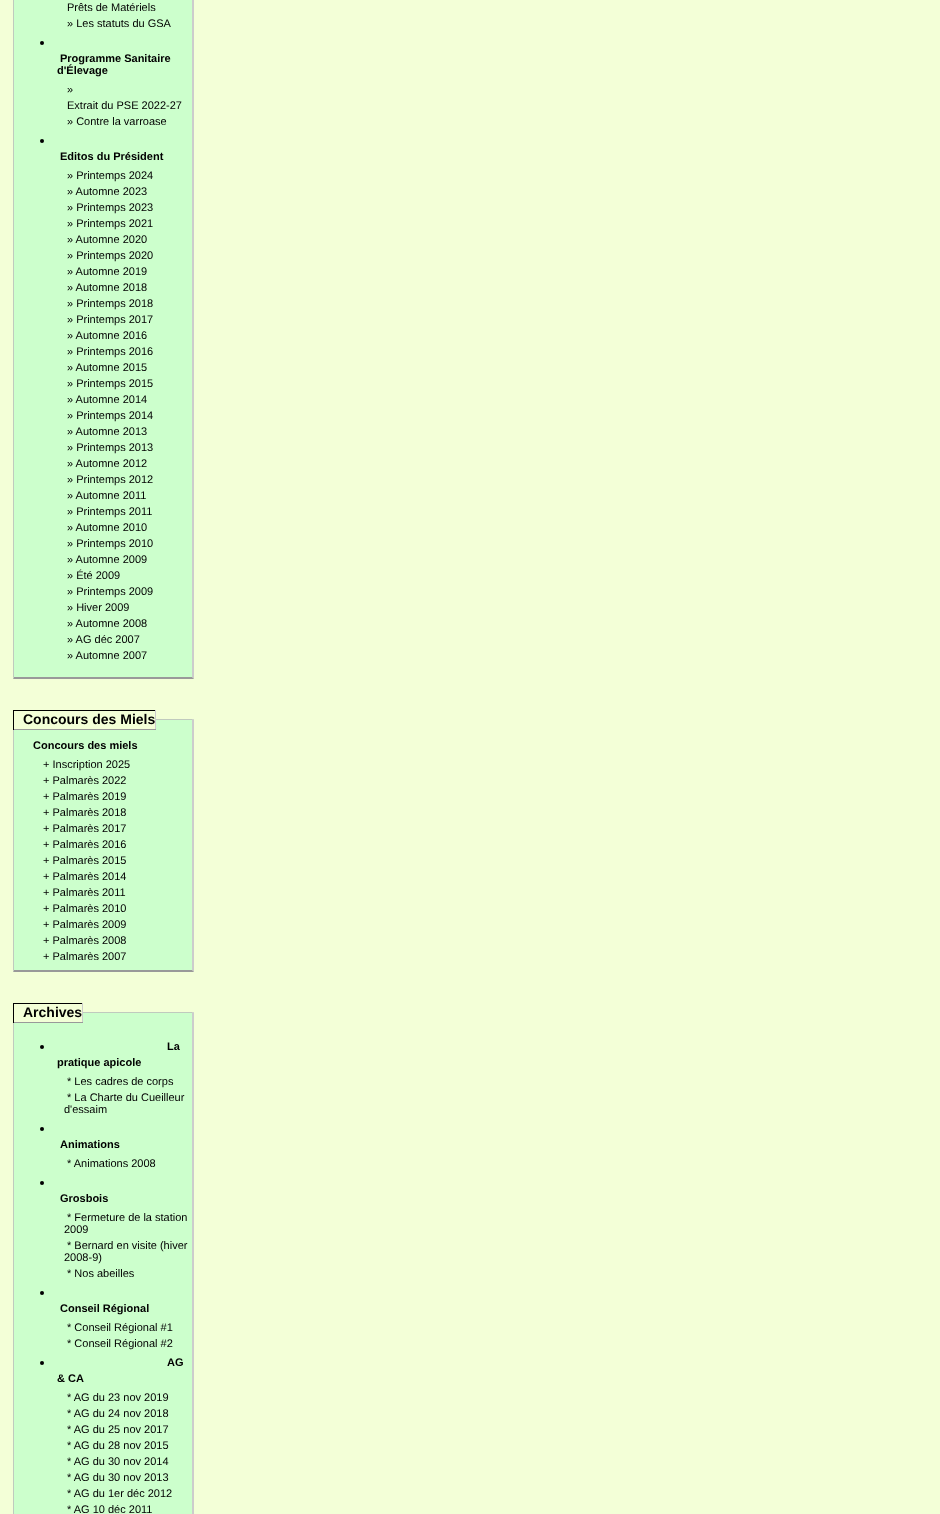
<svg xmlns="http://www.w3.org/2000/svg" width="940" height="1514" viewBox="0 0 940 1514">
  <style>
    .t1 { font: 11px Liberation Sans; fill: #000; }
    .t2 { font: bold 11px Liberation Sans; fill: #000; }
    .t3 { font: bold 14px Liberation Sans; fill: #000; }
  </style>
  <rect width="100%" height="100%" fill="#f3ffd7"/>
  <rect x="14" y="0" width="178" height="677" fill="#cfc"/>
  <path d="M194-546V679L192 677V-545Z" fill="#ccc"/>
  <path d="M194 679H13L14 677H192Z" fill="#999"/>
  <path d="M13 679V-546L14-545V677Z" fill="#c0cabe"/>
  <text x="67" y="11" class="t1">Prêts de Matériels</text>
  <text x="67" y="27" class="t1">» Les statuts du GSA</text>
  <circle cx="42" cy="43" r="2" fill="#000"/>
  <text x="60" y="62" class="t2">Programme Sanitaire</text>
  <text x="57" y="74" class="t2">d'Élevage</text>
  <text x="67" y="93" class="t1">»</text>
  <text x="67" y="109" class="t1">Extrait du PSE 2022-27</text>
  <text x="67" y="125" class="t1">» Contre la varroase</text>
  <circle cx="42" cy="141" r="2" fill="#000"/>
  <text x="60" y="160" class="t2">Editos du Président</text>
  <text x="67" y="179" class="t1">» Printemps 2024</text>
  <text x="67" y="195" class="t1">» Automne 2023</text>
  <text x="67" y="211" class="t1">» Printemps 2023</text>
  <text x="67" y="227" class="t1">» Printemps 2021</text>
  <text x="67" y="243" class="t1">» Automne 2020</text>
  <text x="67" y="259" class="t1">» Printemps 2020</text>
  <text x="67" y="275" class="t1">» Automne 2019</text>
  <text x="67" y="291" class="t1">» Automne 2018</text>
  <text x="67" y="307" class="t1">» Printemps 2018</text>
  <text x="67" y="323" class="t1">» Printemps 2017</text>
  <text x="67" y="339" class="t1">» Automne 2016</text>
  <text x="67" y="355" class="t1">» Printemps 2016</text>
  <text x="67" y="371" class="t1">» Automne 2015</text>
  <text x="67" y="387" class="t1">» Printemps 2015</text>
  <text x="67" y="403" class="t1">» Automne 2014</text>
  <text x="67" y="419" class="t1">» Printemps 2014</text>
  <text x="67" y="435" class="t1">» Automne 2013</text>
  <text x="67" y="451" class="t1">» Printemps 2013</text>
  <text x="67" y="467" class="t1">» Automne 2012</text>
  <text x="67" y="483" class="t1">» Printemps 2012</text>
  <text x="67" y="499" class="t1">» Automne 2011</text>
  <text x="67" y="515" class="t1">» Printemps 2011</text>
  <text x="67" y="531" class="t1">» Automne 2010</text>
  <text x="67" y="547" class="t1">» Printemps 2010</text>
  <text x="67" y="563" class="t1">» Automne 2009</text>
  <text x="67" y="579" class="t1">» Été 2009</text>
  <text x="67" y="595" class="t1">» Printemps 2009</text>
  <text x="67" y="611" class="t1">» Hiver 2009</text>
  <text x="67" y="627" class="t1">» Automne 2008</text>
  <text x="67" y="643" class="t1">» AG déc 2007</text>
  <text x="67" y="659" class="t1">» Automne 2007</text>
  <rect x="14" y="720" width="178" height="250" fill="#cfc"/>
  <path d="M13 719H194L192 720H14Z" fill="#c0cabe"/>
  <rect x="14" y="719" width="141" height="10" fill="#f3ffd7"/>
  <text x="23" y="724" class="t3">Concours des Miels</text>
  <rect x="13" y="710" width="143" height="1" fill="#000"/>
  <rect x="155" y="710" width="1" height="20" fill="#ccc"/>
  <path d="M194 719V972L192 970V720Z" fill="#ccc"/>
  <path d="M194 972H13L14 970H192Z" fill="#999"/>
  <path d="M13 972V719L14 720V970Z" fill="#c0cabe"/>
  <rect x="13" y="729" width="143" height="1" fill="#999"/>
  <rect x="13" y="710" width="1" height="20" fill="#000"/>
  <text x="33" y="749" class="t2">Concours des miels</text>
  <text x="43" y="768" class="t1">+ Inscription 2025</text>
  <text x="43" y="784" class="t1">+ Palmarès 2022</text>
  <text x="43" y="800" class="t1">+ Palmarès 2019</text>
  <text x="43" y="816" class="t1">+ Palmarès 2018</text>
  <text x="43" y="832" class="t1">+ Palmarès 2017</text>
  <text x="43" y="848" class="t1">+ Palmarès 2016</text>
  <text x="43" y="864" class="t1">+ Palmarès 2015</text>
  <text x="43" y="880" class="t1">+ Palmarès 2014</text>
  <text x="43" y="896" class="t1">+ Palmarès 2011</text>
  <text x="43" y="912" class="t1">+ Palmarès 2010</text>
  <text x="43" y="928" class="t1">+ Palmarès 2009</text>
  <text x="43" y="944" class="t1">+ Palmarès 2008</text>
  <text x="43" y="960" class="t1">+ Palmarès 2007</text>
  <rect x="14" y="1013" width="178" height="501" fill="#cfc"/>
  <path d="M13 1012H194L192 1013H14Z" fill="#c0cabe"/>
  <rect x="14" y="1012" width="68" height="10" fill="#f3ffd7"/>
  <text x="23" y="1017" class="t3">Archives</text>
  <rect x="13" y="1003" width="70" height="1" fill="#000"/>
  <rect x="82" y="1003" width="1" height="20" fill="#ccc"/>
  <path d="M13 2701V1012L14 1013V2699Z" fill="#c0cabe"/>
  <rect x="13" y="1022" width="70" height="1" fill="#999"/>
  <rect x="13" y="1003" width="1" height="20" fill="#000"/>
  <path d="M194 1012V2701L192 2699V1013Z" fill="#ccc"/>
  <circle cx="42" cy="1047" r="2" fill="#000"/>
  <text x="167" y="1050" class="t2">La</text>
  <text x="57" y="1066" class="t2">pratique apicole</text>
  <text x="67" y="1085" class="t1">* Les cadres de corps</text>
  <text x="67" y="1101" class="t1">* La Charte du Cueilleur</text>
  <text x="64" y="1113" class="t1">d'essaim</text>
  <circle cx="42" cy="1129" r="2" fill="#000"/>
  <text x="60" y="1148" class="t2">Animations</text>
  <text x="67" y="1167" class="t1">* Animations 2008</text>
  <circle cx="42" cy="1183" r="2" fill="#000"/>
  <text x="60" y="1202" class="t2">Grosbois</text>
  <text x="67" y="1221" class="t1">* Fermeture de la station</text>
  <text x="64" y="1233" class="t1">2009</text>
  <text x="67" y="1249" class="t1">* Bernard en visite (hiver</text>
  <text x="64" y="1261" class="t1">2008-9)</text>
  <text x="67" y="1277" class="t1">* Nos abeilles</text>
  <circle cx="42" cy="1293" r="2" fill="#000"/>
  <text x="60" y="1312" class="t2">Conseil Régional</text>
  <text x="67" y="1331" class="t1">* Conseil Régional #1</text>
  <text x="67" y="1347" class="t1">* Conseil Régional #2</text>
  <circle cx="42" cy="1363" r="2" fill="#000"/>
  <text x="167" y="1366" class="t2">AG</text>
  <text x="57" y="1382" class="t2">&amp; CA</text>
  <text x="67" y="1401" class="t1">* AG du 23 nov 2019</text>
  <text x="67" y="1417" class="t1">* AG du 24 nov 2018</text>
  <text x="67" y="1433" class="t1">* AG du 25 nov 2017</text>
  <text x="67" y="1449" class="t1">* AG du 28 nov 2015</text>
  <text x="67" y="1465" class="t1">* AG du 30 nov 2014</text>
  <text x="67" y="1481" class="t1">* AG du 30 nov 2013</text>
  <text x="67" y="1497" class="t1">* AG du 1er déc 2012</text>
  <text x="67" y="1513" class="t1">* AG 10 déc 2011</text>
</svg>
